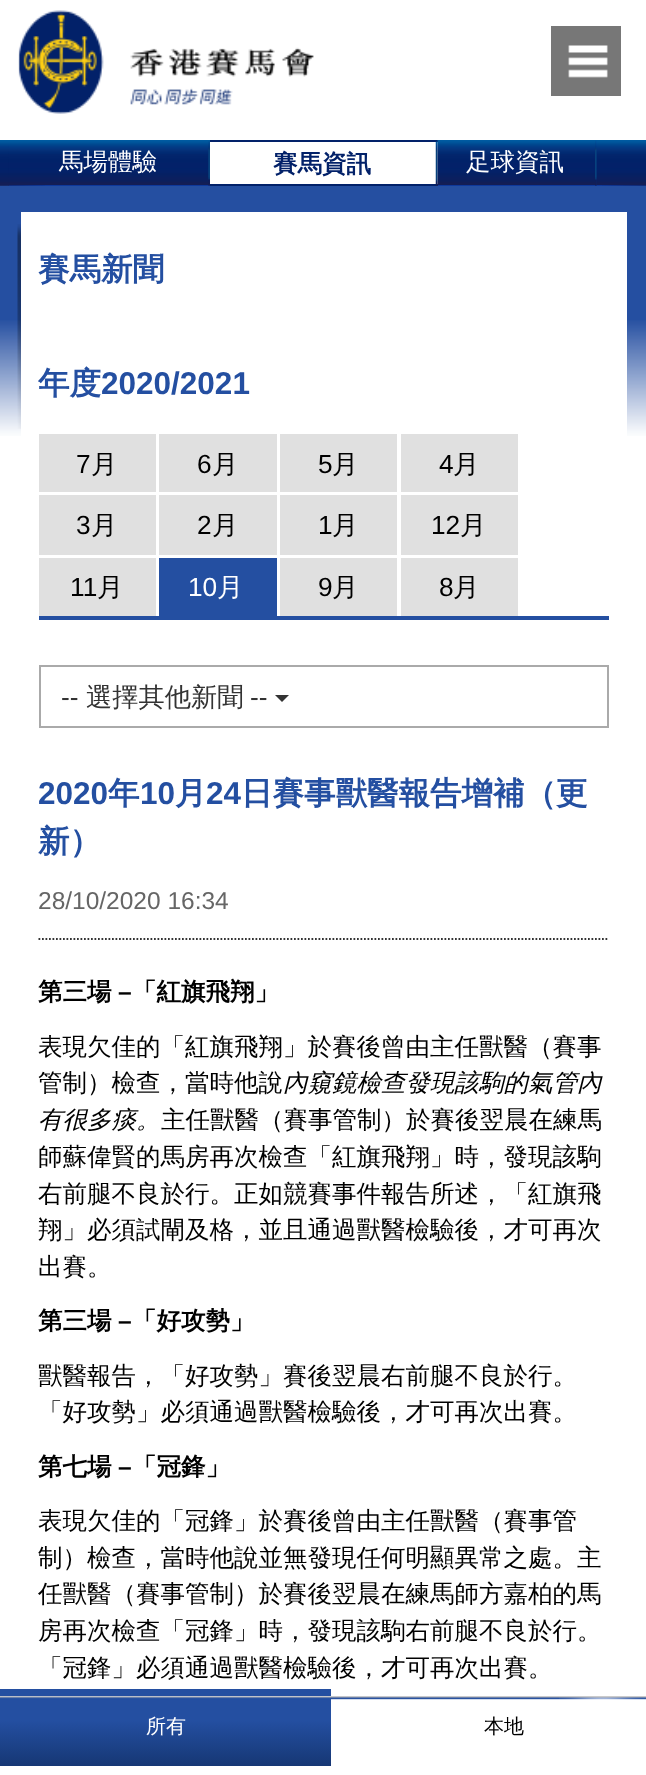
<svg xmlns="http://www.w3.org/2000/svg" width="646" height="1775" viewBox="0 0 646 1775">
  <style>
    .t1 { font: 500 24.5px WenQuanYi Zen Hei; fill: #fff; }
    .t2 { font: bold 24.5px WenQuanYi Zen Hei; fill: #022169; }
    .t3 { font: bold 31.5px WenQuanYi Zen Hei; fill: #244fa1; }
    .t4 { font: bold 31.5px Liberation Sans; fill: #244fa1; }
    .t5 { font: 26.25px Liberation Sans; fill: #000; }
    .t6 { font: 500 26.25px WenQuanYi Zen Hei; fill: #000; }
    .t7 { font: 26.25px Liberation Sans; fill: #fff; }
    .t8 { font: 500 26.25px WenQuanYi Zen Hei; fill: #fff; }
    .t9 { font: 26.25px Liberation Sans; fill: #333; }
    .t10 { font: 500 26.25px WenQuanYi Zen Hei; fill: #333; }
    .t11 { font: 24.5px Liberation Sans; fill: #666; }
    .t12 { font: bold 24.5px WenQuanYi Zen Hei; fill: #000; }
    .t13 { font: bold 24.5px Liberation Sans; fill: #000; }
    .t14 { font: 500 24.5px WenQuanYi Zen Hei; fill: #000; }
    .t15 { font: italic 500 24.5px WenQuanYi Zen Hei; fill: #000; }
    .t16 { font: 500 20px WenQuanYi Zen Hei; fill: #fff; }
    .t17 { font: 500 20px WenQuanYi Zen Hei; fill: #000; }
  </style>
  <defs>
    <linearGradient id="g1" gradientUnits="userSpaceOnUse" x1="165" y1="1689" x2="165" y2="1766"><stop offset="0" stop-color="#244fa1"/><stop offset="0.41" stop-color="#244fa1"/><stop offset="1" stop-color="#163774"/></linearGradient>
  </defs>
  <rect width="100%" height="100%" fill="#fff"/>
  <image x="0" y="185" width="646" height="251" href="images/1.png"/>
  <image x="18" y="10" width="296" height="104" href="images/2.png"/>
  <rect x="551" y="26" width="70" height="70" fill="#777"/>
  <image x="568" y="45" width="40" height="33" href="images/3.png"/>
  <image x="0" y="140" width="9" height="46" href="images/4.png"/>
  <rect x="9" y="185" width="201" height="1" fill="#0855e3"/>
  <image x="8" y="140" width="202" height="46" href="images/5.png"/>
  <text x="59" y="170" class="t1">馬場體驗</text>
  <image x="208" y="141" width="2" height="45" href="images/6.png"/>
  <rect x="210" y="140" width="228" height="2" fill="#022169"/>
  <rect x="210" y="184" width="228" height="2" fill="#022169"/>
  <text x="273" y="172" class="t2">賽馬資訊</text>
  <image x="435" y="141" width="3" height="45" href="images/7.png"/>
  <rect x="438" y="140" width="159" height="46" fill="#0855e3"/>
  <image x="437" y="140" width="160" height="46" href="images/8.png"/>
  <text x="466" y="170" class="t1">足球資訊</text>
  <image x="595" y="140" width="2" height="46" href="images/9.png"/>
  <rect x="597" y="185" width="49" height="1" fill="#0855e3"/>
  <image x="596" y="140" width="50" height="46" href="images/10.png"/>
  <image x="0" y="185" width="45" height="1" href="images/11.png"/>
  <image x="602" y="185" width="44" height="1" href="images/12.png"/>
  <image x="17" y="224" width="4" height="205" href="images/13.png"/>
  <rect x="21" y="212" width="606" height="224" fill="#fff"/>
  <text x="38" y="280" class="t3">賽馬新聞</text>
  <text x="38" y="394" class="t3">年度</text>
  <text x="101" y="394" class="t4">2020/2021</text>
  <rect x="39" y="616" width="570" height="4" fill="#244fa1"/>
  <rect x="39" y="434" width="117" height="58" fill="#e0e0e0"/>
  <text x="76" y="473" class="t5">7</text>
  <text x="91" y="473" class="t6">月</text>
  <rect x="159" y="434" width="118" height="58" fill="#e0e0e0"/>
  <text x="197" y="473" class="t5">6</text>
  <text x="212" y="473" class="t6">月</text>
  <rect x="280" y="434" width="117" height="58" fill="#e0e0e0"/>
  <text x="318" y="473" class="t5">5</text>
  <text x="332" y="473" class="t6">月</text>
  <rect x="401" y="434" width="117" height="58" fill="#e0e0e0"/>
  <text x="439" y="473" class="t5">4</text>
  <text x="453" y="473" class="t6">月</text>
  <rect x="39" y="495" width="117" height="60" fill="#e0e0e0"/>
  <text x="76" y="534" class="t5">3</text>
  <text x="91" y="534" class="t6">月</text>
  <rect x="159" y="495" width="118" height="60" fill="#e0e0e0"/>
  <text x="197" y="534" class="t5">2</text>
  <text x="212" y="534" class="t6">月</text>
  <rect x="280" y="495" width="117" height="60" fill="#e0e0e0"/>
  <text x="318" y="534" class="t5">1</text>
  <text x="332" y="534" class="t6">月</text>
  <rect x="401" y="495" width="117" height="60" fill="#e0e0e0"/>
  <text x="431" y="534" class="t5">12</text>
  <text x="460" y="534" class="t6">月</text>
  <rect x="39" y="558" width="117" height="58" fill="#e0e0e0"/>
  <text x="70" y="596" class="t5">11</text>
  <text x="97" y="596" class="t6">月</text>
  <rect x="159" y="558" width="118" height="58" fill="#244fa1"/>
  <text x="188" y="596" class="t7">10</text>
  <text x="217" y="596" class="t8">月</text>
  <rect x="280" y="558" width="117" height="58" fill="#e0e0e0"/>
  <text x="318" y="596" class="t5">9</text>
  <text x="332" y="596" class="t6">月</text>
  <rect x="401" y="558" width="117" height="58" fill="#e0e0e0"/>
  <text x="439" y="596" class="t5">8</text>
  <text x="453" y="596" class="t6">月</text>
  <rect x="40" y="666" width="568" height="61" fill="none" stroke="#aaa" stroke-width="2"/>
  <text x="61" y="706" class="t9">--</text>
  <text x="86" y="706" class="t10">選擇其他新聞</text>
  <text x="250" y="706" class="t9">--</text>
  <path d="M275 695H289L282 702Z" fill="#333"/>
  <path d="M38.5 939H609" fill="none" stroke="#333" stroke-width="1.8" stroke-dasharray="1.75 1.75"/>
  <text x="38" y="804" class="t4">2020</text>
  <text x="108" y="804" class="t3">年</text>
  <text x="140" y="804" class="t4">10</text>
  <text x="175" y="804" class="t3">月</text>
  <text x="206" y="804" class="t4">24</text>
  <text x="241" y="804" class="t3">日賽事獸醫報告增補（更</text>
  <text x="38" y="852" class="t3">新）</text>
  <text x="38" y="909" class="t11">28/10/2020 16:34</text>
  <text x="38" y="1000" class="t12">第三場</text>
  <text x="118" y="1000" class="t13">–</text>
  <text x="132" y="1000" class="t12">「紅旗飛翔」</text>
  <text x="38" y="1055" class="t14">表現欠佳的「紅旗飛翔」於賽後曾由主任獸醫（賽事</text>
  <text x="38" y="1091" class="t14">管制）檢查，當時他說</text>
  <text x="283" y="1091" class="t15">內窺鏡檢查發現該駒的氣管內</text>
  <text x="38" y="1128" class="t15">有很多痰。</text>
  <text x="161" y="1128" class="t14">主任獸醫（賽事管制）於賽後翌晨在練馬</text>
  <text x="38" y="1165" class="t14">師蘇偉賢的馬房再次檢查「紅旗飛翔」時，發現該駒</text>
  <text x="38" y="1202" class="t14">右前腿不良於行。正如競賽事件報告所述，「紅旗飛</text>
  <text x="38" y="1238" class="t14">翔」必須試閘及格，並且通過獸醫檢驗後，才可再次</text>
  <text x="38" y="1275" class="t14">出賽。</text>
  <text x="38" y="1329" class="t12">第三場</text>
  <text x="118" y="1329" class="t13">–</text>
  <text x="132" y="1329" class="t12">「好攻勢」</text>
  <text x="38" y="1384" class="t14">獸醫報告，「好攻勢」賽後翌晨右前腿不良於行。</text>
  <text x="38" y="1420" class="t14">「好攻勢」必須通過獸醫檢驗後，才可再次出賽。</text>
  <text x="38" y="1475" class="t12">第七場</text>
  <text x="118" y="1475" class="t13">–</text>
  <text x="132" y="1475" class="t12">「冠鋒」</text>
  <text x="38" y="1529" class="t14">表現欠佳的「冠鋒」於賽後曾由主任獸醫（賽事管</text>
  <text x="38" y="1566" class="t14">制）檢查，當時他說並無發現任何明顯異常之處。主</text>
  <text x="38" y="1602" class="t14">任獸醫（賽事管制）於賽後翌晨在練馬師方嘉柏的馬</text>
  <text x="38" y="1639" class="t14">房再次檢查「冠鋒」時，發現該駒右前腿不良於行。</text>
  <text x="38" y="1676" class="t14">「冠鋒」必須通過獸醫檢驗後，才可再次出賽。</text>
  <rect x="0" y="1689" width="331" height="77" fill="url(#g1)"/>
  <image x="0" y="1696" width="646" height="4" href="images/14.png"/>
  <text x="146" y="1733" class="t16">所有</text>
  <text x="484" y="1733" class="t17">本地</text>
</svg>
